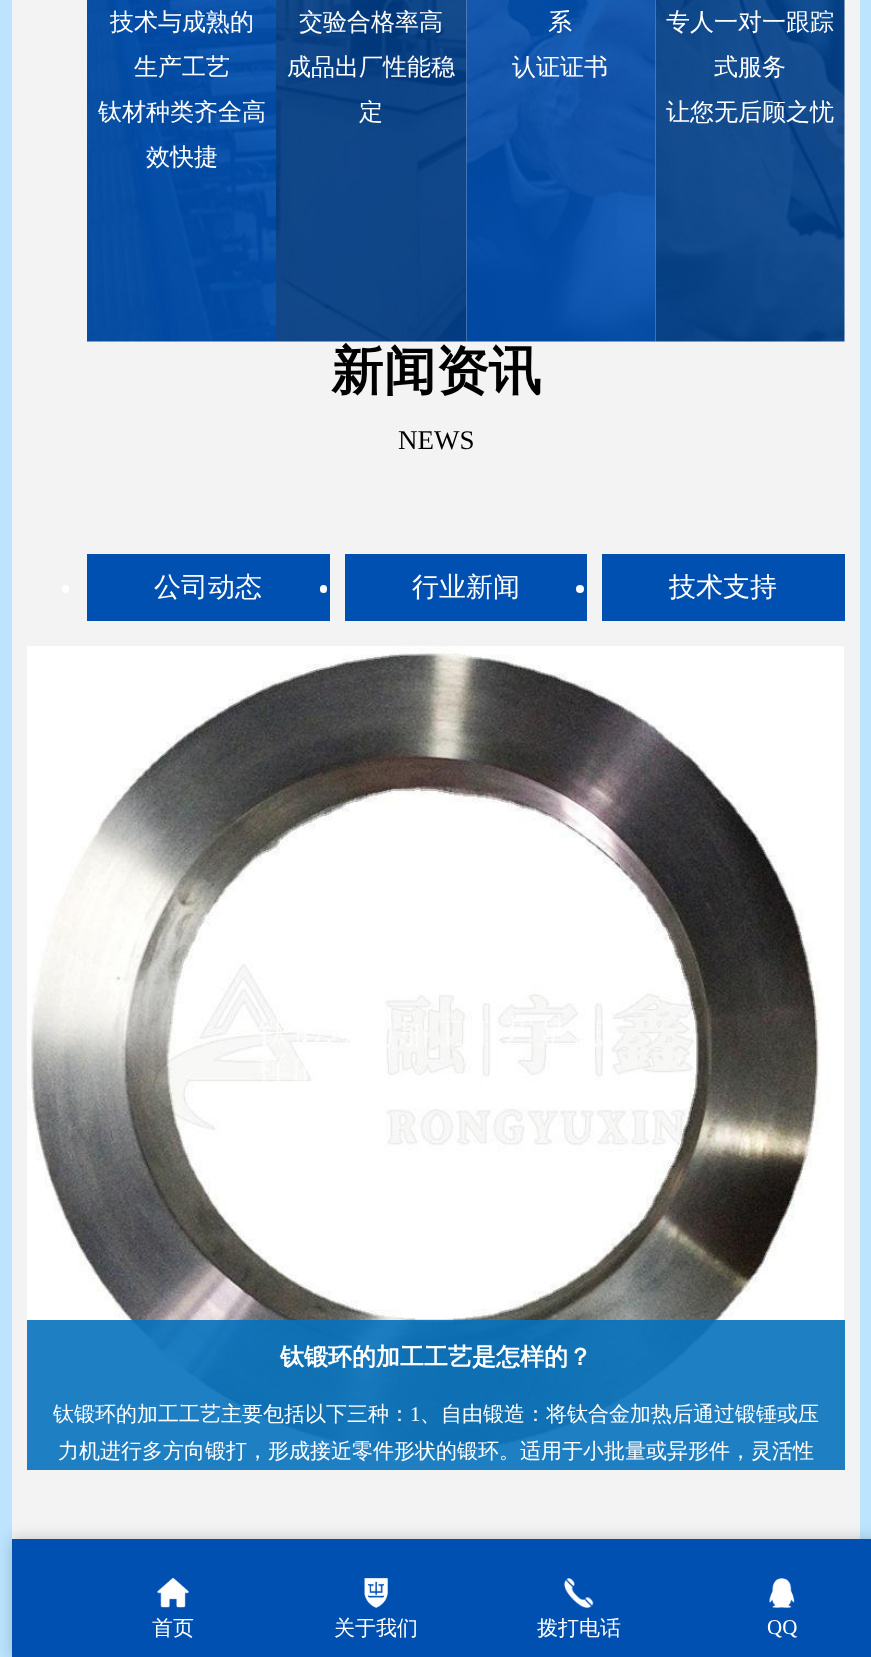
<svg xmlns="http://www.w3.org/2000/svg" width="871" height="1657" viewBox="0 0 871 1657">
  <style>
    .t1 { font: 500 24px WenQuanYi Zen Hei; fill: #fff; }
    .t2 { font: bold 52.5px WenQuanYi Zen Hei; fill: #000; }
    .t3 { font: 27px Liberation Serif; fill: #000; }
    .t4 { font: 500 27px WenQuanYi Zen Hei; fill: #fff; }
    .t5 { font: bold 24px WenQuanYi Zen Hei; fill: #fff; }
    .t6 { font: 500 21px WenQuanYi Zen Hei; fill: #fff; }
    .t7 { font: 21px Liberation Serif; fill: #fff; }
  </style>
  <rect width="100%" height="100%" fill="#bce4ff"/>
  <rect x="12" y="0" width="848" height="1539" fill="#f3f3f3"/>
  <image x="87" y="0" width="189" height="342" href="images/1.png"/>
  <text x="110" y="30" class="t1">技术与成熟的</text>
  <text x="134" y="75" class="t1">生产工艺</text>
  <text x="98" y="120" class="t1">钛材种类齐全高</text>
  <text x="146" y="165" class="t1">效快捷</text>
  <image x="276" y="0" width="191" height="342" href="images/2.png"/>
  <text x="299" y="30" class="t1">交验合格率高</text>
  <text x="287" y="75" class="t1">成品出厂性能稳</text>
  <text x="359" y="120" class="t1">定</text>
  <image x="466" y="0" width="190" height="342" href="images/3.png"/>
  <text x="548" y="30" class="t1">系</text>
  <text x="512" y="75" class="t1">认证证书</text>
  <image x="655" y="0" width="190" height="342" href="images/4.png"/>
  <text x="666" y="30" class="t1">专人一对一跟踪</text>
  <text x="714" y="75" class="t1">式服务</text>
  <text x="666" y="120" class="t1">让您无后顾之忧</text>
  <text x="331" y="389" class="t2">新闻资讯</text>
  <text x="398" y="449" class="t3">NEWS</text>
  <rect x="87" y="554" width="243" height="67" fill="#0050b2"/>
  <rect x="62" y="585" width="7" height="8" rx="3.5" fill="#fff"/>
  <text x="154" y="596" class="t4">公司动态</text>
  <rect x="345" y="554" width="242" height="67" fill="#0050b2"/>
  <rect x="320" y="585" width="7" height="8" rx="3.5" fill="#fff"/>
  <text x="412" y="596" class="t4">行业新闻</text>
  <rect x="602" y="554" width="243" height="67" fill="#0050b2"/>
  <circle cx="580" cy="589" r="4" fill="#fff"/>
  <text x="669" y="596" class="t4">技术支持</text>
  <image x="27" y="646" width="817" height="818" href="images/5.png"/>
  <rect x="27" y="1320" width="818" height="150" fill="#0671bde6"/>
  <text x="280" y="1365" class="t5">钛锻环的加工工艺是怎样的？</text>
  <text x="53" y="1421" class="t6">钛锻环的加工工艺主要包括以下三种：</text>
  <text x="410" y="1421" class="t7">1</text>
  <text x="420" y="1421" class="t6">、自由锻造：将钛合金加热后通过锻锤或压</text>
  <text x="58" y="1458" class="t6">力机进行多方向锻打，形成接近零件形状的锻环。适用于小批量或异形件，灵活性</text>
  <rect x="12" y="1539" width="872" height="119" fill="#00000033" filter="blur(7.5px)"/>
  <rect x="12" y="1539" width="859" height="118" fill="#0050b2"/>
  <image x="157" y="1578" width="32" height="30" href="images/6.png"/>
  <text x="152" y="1635" class="t6">首页</text>
  <image x="364" y="1578" width="24" height="30" href="images/7.png"/>
  <text x="334" y="1635" class="t6">关于我们</text>
  <image x="564" y="1578" width="30" height="30" href="images/8.png"/>
  <text x="537" y="1635" class="t6">拨打电话</text>
  <image x="769" y="1578" width="26" height="30" href="images/9.png"/>
  <text x="767" y="1634" class="t7">QQ</text>
</svg>
